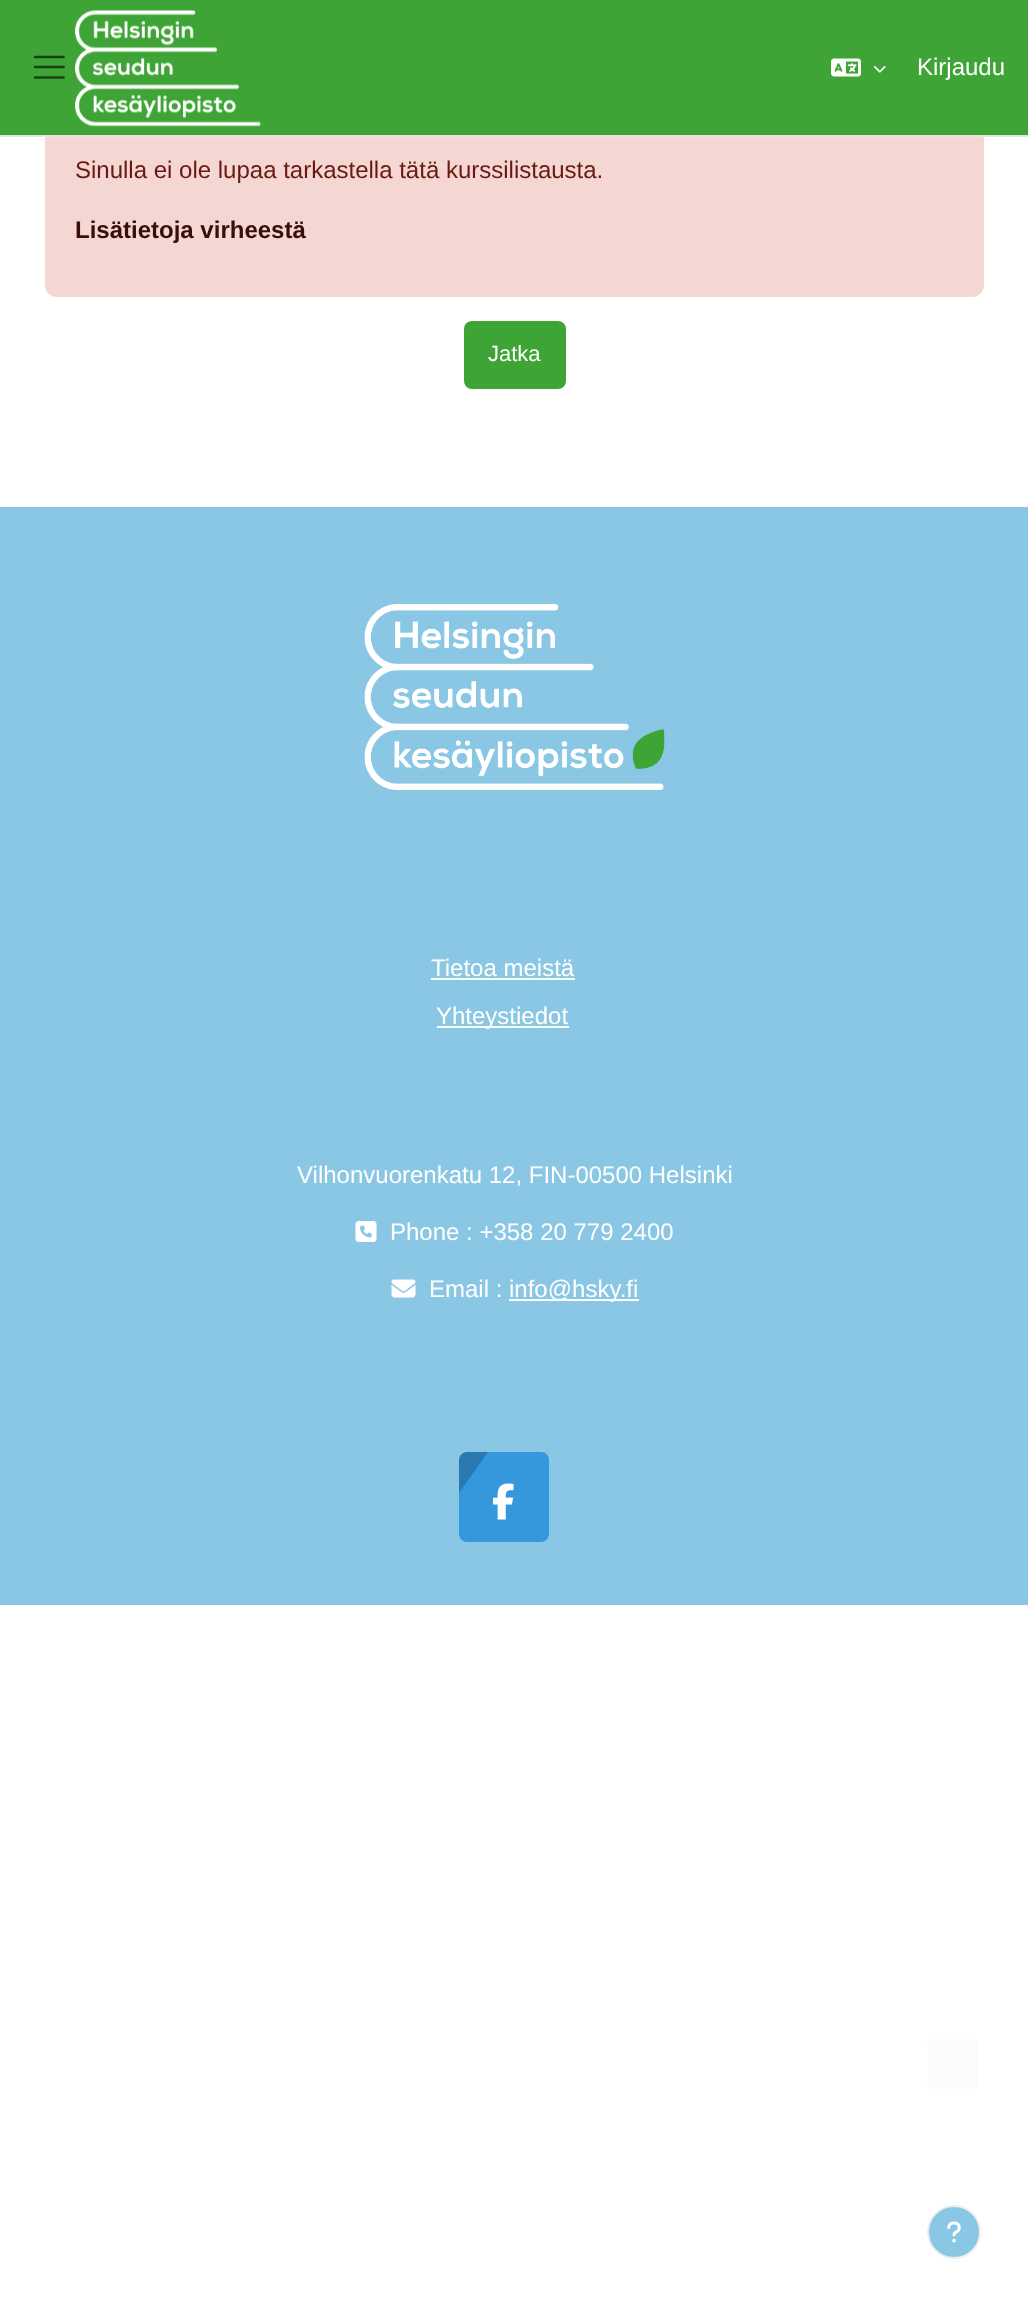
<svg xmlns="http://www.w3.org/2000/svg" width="1028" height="2307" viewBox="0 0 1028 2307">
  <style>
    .t1 { font: 24px Liberation Sans; fill: #fff; }
    .t2 { font: 24px Liberation Sans; fill: #691911; }
    .t3 { font: bold 24px Liberation Sans; fill: #390e09; }
    .t4 { font: 22px Liberation Sans; fill: #fff; }
  </style>
  <rect width="100%" height="100%" fill="#fff"/>
  <rect x="45" y="129" width="939" height="168" rx="12" fill="#f4d6d2"/>
  <rect x="0" y="0" width="1028" height="135" fill="#3da435"/>
  <rect x="0" y="135" width="1028" height="2" fill="#e8e3e3"/>
  <path d="M35 57H63.5M35 67H63.5M35 77.5H63.5" fill="none" stroke="#184215" stroke-width="2.6" stroke-linecap="round"/>
  <image x="75" y="10" width="186" height="117" href="images/1.png"/>
  <image x="831" y="58" width="30" height="19" href="images/2.png"/>
  <image x="873" y="66" width="13" height="7" href="images/3.png"/>
  <text x="917" y="75" class="t1">Kirjaudu</text>
  <text x="75" y="178" class="t2">Sinulla ei ole lupaa tarkastella tätä kurssilistausta.</text>
  <text x="75" y="238" class="t3">Lisätietoja virheestä</text>
  <rect x="464" y="321" width="102" height="68" rx="8" fill="#3da435"/>
  <text x="488" y="361" class="t4">Jatka</text>
  <rect x="0" y="507" width="1028" height="1098" fill="#8ac7e4"/>
  <image x="364" y="604" width="301" height="186" href="images/4.png"/>
  <text x="431" y="976" class="t1">Tietoa meistä</text>
  <rect x="431" y="978" width="144" height="2" fill="#fff"/>
  <rect x="437" y="1026" width="132" height="2" fill="#fff"/>
  <text x="436" y="1024" class="t1">Yhteystiedot</text>
  <text x="297" y="1183" class="t1">Vilhonvuorenkatu 12, FIN-00500 Helsinki</text>
  <image x="355" y="1221" width="22" height="21" href="images/5.png"/>
  <text x="390" y="1240" class="t1">Phone : +358 20 779 2400</text>
  <image x="391" y="1279" width="25" height="19" href="images/6.png"/>
  <text x="429" y="1297" class="t1">Email :</text>
  <rect x="509" y="1299" width="130" height="2" fill="#fff"/>
  <text x="509" y="1297" class="t1">info@hsky.fi</text>
  <rect x="459" y="1452" width="90" height="90" rx="8" fill="#3598dc"/>
  <image x="493" y="1483" width="21" height="37" href="images/7.png"/>
  <path d="M467 1452H488L459 1493V1460C459 1456 463 1452 467 1452Z" fill="#00000033"/>
  <circle cx="954" cy="2232" r="26" fill="#8ac7e4" stroke="#eee" stroke-width="2"/>
  <image x="947" y="2221" width="14" height="22" href="images/8.png"/>
  <rect x="927" y="2038" width="53" height="52" rx="7" fill="#fafcf9" stroke="#fff" stroke-width="2"/>
</svg>
